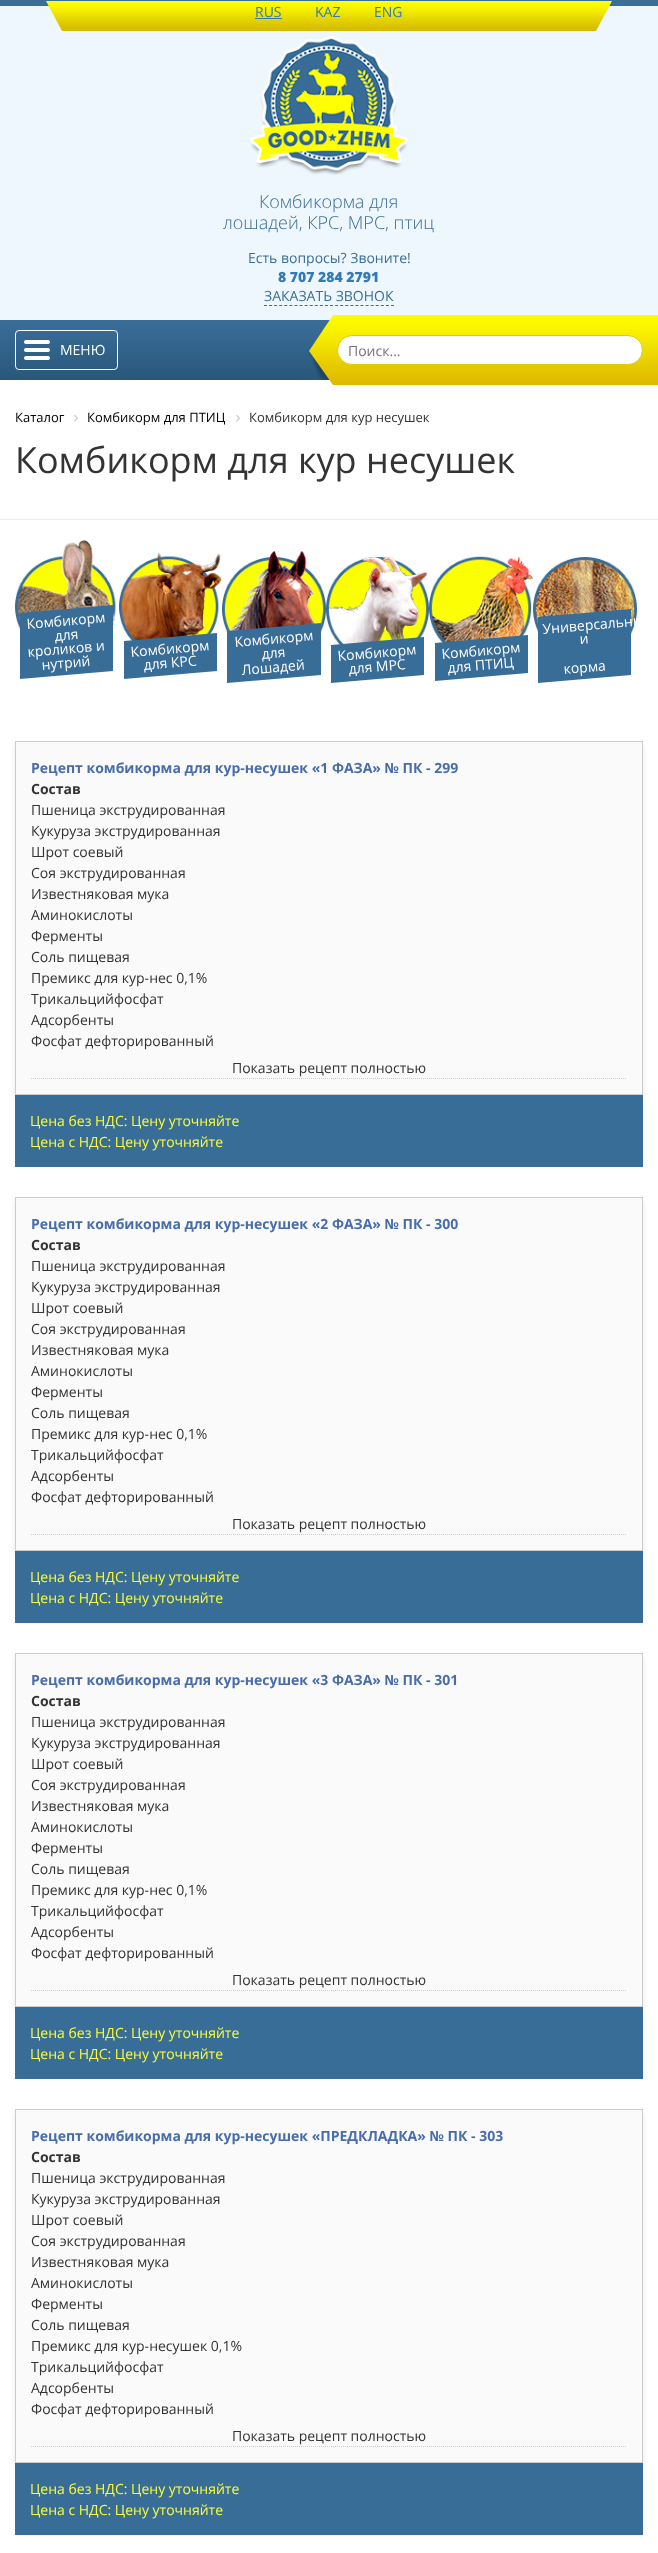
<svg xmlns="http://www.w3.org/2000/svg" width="658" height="2553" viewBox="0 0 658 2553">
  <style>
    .t1 { font: 14px Open Sans; fill: #337ab7; }
    .t2 { font: 300 18px Open Sans; fill: #3b6e96; }
    .t3 { font: 14px Open Sans; fill: #3b6e96; }
    .t4 { font: 800 14px Open Sans; fill: #337ab7; }
    .t5 { font: 14px Open Sans; fill: #fff; }
    .t6 { font: 14px Open Sans; fill: #757575; }
    .t7 { font: 13px Open Sans; fill: #000; }
    .t8 { font: 13px Open Sans; fill: #333; }
    .t9 { font: 36px Open Sans; fill: #333; }
    .t10 { font: bold 14px Open Sans; fill: #486daa; }
    .t11 { font: bold 14px Open Sans; fill: #333; }
    .t12 { font: 14px Open Sans; fill: #333; }
    .t13 { font: 14px Open Sans; fill: #fcfd38; }
  </style>
  <rect width="100%" height="100%" fill="#fff"/>
  <rect x="0" y="6" width="658" height="314" fill="#eef7fd"/>
  <rect x="0" y="0" width="658" height="6" fill="#3b6e96"/>
  <image x="46" y="1" width="17" height="30" href="images/1.png"/>
  <image x="63" y="1" width="532" height="30" href="images/2.png"/>
  <text x="255" y="17" class="t1">RUS</text>
  <rect x="255" y="18" width="27" height="1" fill="#337ab7"/>
  <text x="315" y="17" class="t1">KAZ</text>
  <text x="374" y="17" class="t1">ENG</text>
  <image x="595" y="1" width="17" height="30" href="images/3.png"/>
  <image x="250" y="36" width="158" height="139" href="images/4.png"/>
  <text x="259" y="208" class="t2">Комбикорма для</text>
  <text x="223" y="229" class="t2">лошадей, КРС, МРС, птиц</text>
  <text x="248" y="263" class="t3">Есть вопросы? Звоните!</text>
  <text x="278" y="282" class="t4">8 707 284 2791</text>
  <text x="264" y="301" class="t3">ЗАКАЗАТЬ ЗВОНОК</text>
  <path d="M264 305.5H394" fill="none" stroke="#3b6e96" stroke-dasharray="3 2.08"/>
  <image x="0" y="320" width="330" height="60" href="images/5.png"/>
  <image x="24" y="340" width="26" height="20" href="images/6.png"/>
  <rect x="15.5" y="330.5" width="102" height="39" rx="3.5" fill="none" stroke="#fff"/>
  <text x="60" y="355" class="t5">МЕНЮ</text>
  <image x="308" y="315" width="29" height="70" href="images/7.png"/>
  <image x="337" y="315" width="321" height="70" href="images/8.png"/>
  <rect x="337.5" y="335.5" width="305" height="29" rx="14.5" fill="#fff" stroke="#dfca0e"/>
  <text x="348" y="356" class="t6">Поиск...</text>
  <rect x="0" y="519" width="658" height="1" fill="#eee"/>
  <text x="15" y="422" class="t7">Каталог</text>
  <image x="74" y="414" width="4" height="8" href="images/9.png"/>
  <text x="87" y="422" class="t7">Комбикорм для ПТИЦ</text>
  <image x="236" y="414" width="4" height="8" href="images/9.png"/>
  <text x="249" y="422" class="t8">Комбикорм для кур несушек</text>
  <text x="15" y="473" class="t9">Комбикорм для кур несушек</text>
  <image x="15" y="540" width="102" height="90" href="images/10.png"/>
  <path d="M20 613L113 605V671L20 679Z" fill="#376d97"/>
  <text x="27" y="629" transform="rotate(-5 27 629)" class="t5">Комбикорм</text>
  <text x="55" y="641" transform="rotate(-5 55 641)" class="t5">для</text>
  <text x="28" y="657" transform="rotate(-5 28 657)" class="t5">кроликов и</text>
  <text x="42" y="670" transform="rotate(-5 42 670)" class="t5">нутрий</text>
  <image x="119" y="552" width="103" height="89" href="images/11.png"/>
  <path d="M124 641L217 633V671L124 679Z" fill="#376d97"/>
  <text x="131" y="657" transform="rotate(-5 131 657)" class="t5">Комбикорм</text>
  <text x="144" y="670" transform="rotate(-5 144 670)" class="t5">для КРС</text>
  <image x="222" y="550" width="104" height="83" href="images/12.png"/>
  <path d="M227 631L321 623V675L227 683Z" fill="#376d97"/>
  <text x="235" y="647" transform="rotate(-5 235 647)" class="t5">Комбикорм</text>
  <text x="262" y="659" transform="rotate(-5 262 659)" class="t5">для</text>
  <text x="242" y="675" transform="rotate(-5 242 675)" class="t5">Лошадей</text>
  <image x="326" y="557" width="103" height="88" href="images/13.png"/>
  <path d="M331 645L424 637V675L331 683Z" fill="#376d97"/>
  <text x="338" y="661" transform="rotate(-5 338 661)" class="t5">Комбикорм</text>
  <text x="349" y="674" transform="rotate(-5 349 674)" class="t5">для МРС</text>
  <image x="429" y="556" width="104" height="87" href="images/14.png"/>
  <path d="M435 643L528 635V673L435 681Z" fill="#376d97"/>
  <text x="442" y="659" transform="rotate(-5 442 659)" class="t5">Комбикорм</text>
  <text x="448" y="673" transform="rotate(-5 448 673)" class="t5">для ПТИЦ</text>
  <image x="533" y="557" width="104" height="78" href="images/15.png"/>
  <path d="M538 617L631 609V675L538 683Z" fill="#376d97"/>
  <text x="543" y="634" transform="rotate(-5 543 634)" class="t5">Универсальные</text>
  <text x="580" y="644" transform="rotate(-5 580 644)" class="t5">и</text>
  <text x="564" y="674" transform="rotate(-5 564 674)" class="t5">корма</text>
  <rect x="15" y="745" width="628" height="354" fill="#0000001a" filter="blur(2.5px)"/>
  <rect x="16" y="744" width="626" height="350" fill="#fafafa"/>
  <rect x="15.5" y="741.5" width="627" height="353" fill="none" stroke="#ccc"/>
  <text x="31" y="773" class="t10">Рецепт комбикорма для кур-несушек «1 ФАЗА» № ПК - 299</text>
  <text x="31" y="794" class="t11">Состав</text>
  <text x="31" y="815" class="t12">Пшеница экструдированная</text>
  <text x="31" y="836" class="t12">Кукуруза экструдированная</text>
  <text x="31" y="857" class="t12">Шрот соевый</text>
  <text x="31" y="878" class="t12">Соя экструдированная</text>
  <text x="31" y="899" class="t12">Известняковая мука</text>
  <text x="31" y="920" class="t12">Аминокислоты</text>
  <text x="31" y="941" class="t12">Ферменты</text>
  <text x="31" y="962" class="t12">Соль пищевая</text>
  <text x="31" y="983" class="t12">Премикс для кур-нес 0,1%</text>
  <text x="31" y="1004" class="t12">Трикальцийфосфат</text>
  <text x="31" y="1025" class="t12">Адсорбенты</text>
  <text x="31" y="1046" class="t12">Фосфат дефторированный</text>
  <path d="M31 1078.5H627" fill="none" stroke="#ccc" stroke-dasharray="1 1"/>
  <text x="232" y="1073" class="t12">Показать рецепт полностью</text>
  <rect x="15" y="1095" width="628" height="72" fill="#376d97"/>
  <text x="30" y="1126" class="t13">Цена без НДС: Цену уточняйте</text>
  <text x="30" y="1147" class="t13">Цена с НДС: Цену уточняйте</text>
  <rect x="15" y="1201" width="628" height="354" fill="#0000001a" filter="blur(2.5px)"/>
  <rect x="16" y="1200" width="626" height="350" fill="#fafafa"/>
  <rect x="15.5" y="1197.5" width="627" height="353" fill="none" stroke="#ccc"/>
  <text x="31" y="1229" class="t10">Рецепт комбикорма для кур-несушек «2 ФАЗА» № ПК - 300</text>
  <text x="31" y="1250" class="t11">Состав</text>
  <text x="31" y="1271" class="t12">Пшеница экструдированная</text>
  <text x="31" y="1292" class="t12">Кукуруза экструдированная</text>
  <text x="31" y="1313" class="t12">Шрот соевый</text>
  <text x="31" y="1334" class="t12">Соя экструдированная</text>
  <text x="31" y="1355" class="t12">Известняковая мука</text>
  <text x="31" y="1376" class="t12">Аминокислоты</text>
  <text x="31" y="1397" class="t12">Ферменты</text>
  <text x="31" y="1418" class="t12">Соль пищевая</text>
  <text x="31" y="1439" class="t12">Премикс для кур-нес 0,1%</text>
  <text x="31" y="1460" class="t12">Трикальцийфосфат</text>
  <text x="31" y="1481" class="t12">Адсорбенты</text>
  <text x="31" y="1502" class="t12">Фосфат дефторированный</text>
  <path d="M31 1534.5H627" fill="none" stroke="#ccc" stroke-dasharray="1 1"/>
  <text x="232" y="1529" class="t12">Показать рецепт полностью</text>
  <rect x="15" y="1551" width="628" height="72" fill="#376d97"/>
  <text x="30" y="1582" class="t13">Цена без НДС: Цену уточняйте</text>
  <text x="30" y="1603" class="t13">Цена с НДС: Цену уточняйте</text>
  <rect x="15" y="1657" width="628" height="354" fill="#0000001a" filter="blur(2.5px)"/>
  <rect x="16" y="1656" width="626" height="350" fill="#fafafa"/>
  <rect x="15.5" y="1653.5" width="627" height="353" fill="none" stroke="#ccc"/>
  <text x="31" y="1685" class="t10">Рецепт комбикорма для кур-несушек «3 ФАЗА» № ПК - 301</text>
  <text x="31" y="1706" class="t11">Состав</text>
  <text x="31" y="1727" class="t12">Пшеница экструдированная</text>
  <text x="31" y="1748" class="t12">Кукуруза экструдированная</text>
  <text x="31" y="1769" class="t12">Шрот соевый</text>
  <text x="31" y="1790" class="t12">Соя экструдированная</text>
  <text x="31" y="1811" class="t12">Известняковая мука</text>
  <text x="31" y="1832" class="t12">Аминокислоты</text>
  <text x="31" y="1853" class="t12">Ферменты</text>
  <text x="31" y="1874" class="t12">Соль пищевая</text>
  <text x="31" y="1895" class="t12">Премикс для кур-нес 0,1%</text>
  <text x="31" y="1916" class="t12">Трикальцийфосфат</text>
  <text x="31" y="1937" class="t12">Адсорбенты</text>
  <text x="31" y="1958" class="t12">Фосфат дефторированный</text>
  <path d="M31 1990.5H627" fill="none" stroke="#ccc" stroke-dasharray="1 1"/>
  <text x="232" y="1985" class="t12">Показать рецепт полностью</text>
  <rect x="15" y="2007" width="628" height="72" fill="#376d97"/>
  <text x="30" y="2038" class="t13">Цена без НДС: Цену уточняйте</text>
  <text x="30" y="2059" class="t13">Цена с НДС: Цену уточняйте</text>
  <rect x="15" y="2113" width="628" height="354" fill="#0000001a" filter="blur(2.5px)"/>
  <rect x="16" y="2112" width="626" height="350" fill="#fafafa"/>
  <rect x="15.5" y="2109.5" width="627" height="353" fill="none" stroke="#ccc"/>
  <text x="31" y="2141" class="t10">Рецепт комбикорма для кур-несушек «ПРЕДКЛАДКА» № ПК - 303</text>
  <text x="31" y="2162" class="t11">Состав</text>
  <text x="31" y="2183" class="t12">Пшеница экструдированная</text>
  <text x="31" y="2204" class="t12">Кукуруза экструдированная</text>
  <text x="31" y="2225" class="t12">Шрот соевый</text>
  <text x="31" y="2246" class="t12">Соя экструдированная</text>
  <text x="31" y="2267" class="t12">Известняковая мука</text>
  <text x="31" y="2288" class="t12">Аминокислоты</text>
  <text x="31" y="2309" class="t12">Ферменты</text>
  <text x="31" y="2330" class="t12">Соль пищевая</text>
  <text x="31" y="2351" class="t12">Премикс для кур-несушек 0,1%</text>
  <text x="31" y="2372" class="t12">Трикальцийфосфат</text>
  <text x="31" y="2393" class="t12">Адсорбенты</text>
  <text x="31" y="2414" class="t12">Фосфат дефторированный</text>
  <path d="M31 2446.5H627" fill="none" stroke="#ccc" stroke-dasharray="1 1"/>
  <text x="232" y="2441" class="t12">Показать рецепт полностью</text>
  <rect x="15" y="2463" width="628" height="72" fill="#376d97"/>
  <text x="30" y="2494" class="t13">Цена без НДС: Цену уточняйте</text>
  <text x="30" y="2515" class="t13">Цена с НДС: Цену уточняйте</text>
</svg>
